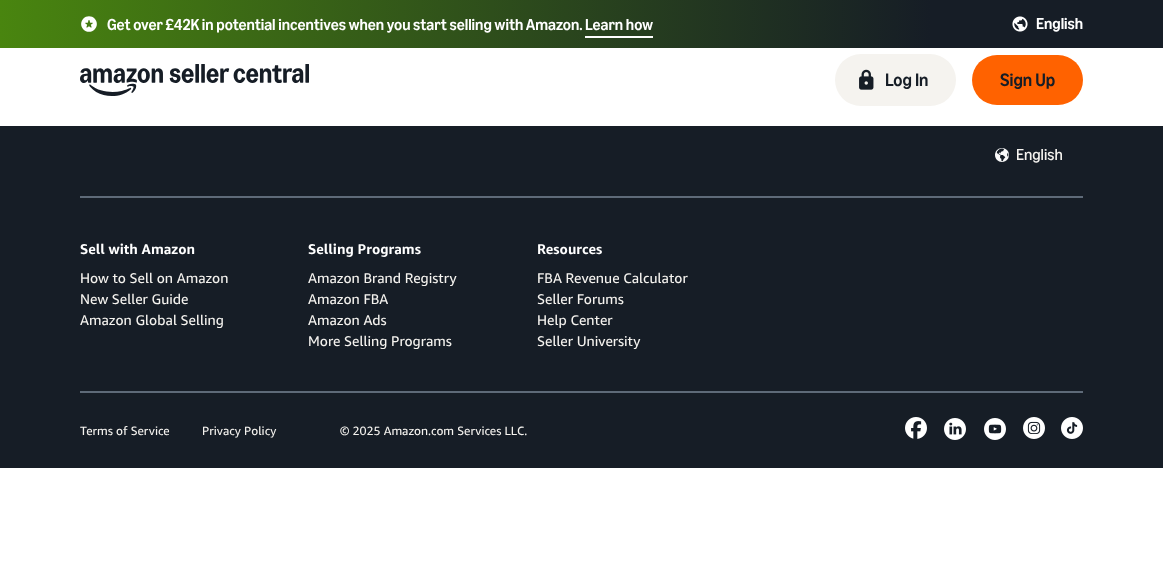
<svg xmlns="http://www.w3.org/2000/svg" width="1163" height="567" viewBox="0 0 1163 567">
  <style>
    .t1 { font: 500 16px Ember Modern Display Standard; fill: #fff; }
    .t2 { font: 500 18px Ember Modern Display Standard; fill: #161d26; }
    .t3 { font: 16px Ember Modern Display Standard; fill: #f5f3ef; }
    .t4 { font: bold 14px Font; fill: #fff; }
    .t5 { font: 14px Font; fill: #f5f3ef; }
    .t6 { font: 12px Font; fill: #f5f3ef; }
  </style>
  <defs>
    <linearGradient id="g1" gradientUnits="userSpaceOnUse" x1="0" y1="24" x2="1163" y2="24"><stop offset="0" stop-color="#49850f"/><stop offset="0.8" stop-color="#161d26"/></linearGradient>
  </defs>
  <rect width="100%" height="100%" fill="#fff"/>
  <rect x="0" y="0" width="1163" height="48" fill="url(#g1)"/>
  <image x="81" y="16" width="16" height="16" href="images/1.png"/>
  <text x="107" y="30" class="t1">Get over £42K in potential incentives when you start selling with Amazon. Learn how</text>
  <rect x="585" y="36" width="68" height="2" fill="#fff"/>
  <image x="1012" y="16" width="16" height="16" href="images/2.png"/>
  <text x="1036" y="29" class="t1">English</text>
  <image x="80" y="64" width="229" height="32" href="images/3.png"/>
  <rect x="835" y="54" width="121" height="52" rx="26" fill="#f5f3ef"/>
  <image x="859" y="69" width="15" height="21" href="images/4.png"/>
  <text x="885" y="86" class="t2">Log In</text>
  <rect x="972" y="55" width="111" height="50" rx="25" fill="#ff6200"/>
  <text x="1000" y="86" class="t2">Sign Up</text>
  <rect x="0" y="126" width="1163" height="342" fill="#161d26"/>
  <image x="995" y="148" width="14" height="14" href="images/5.png"/>
  <text x="1016" y="160" class="t3">English</text>
  <rect x="80" y="196" width="1003" height="2" fill="#5e6a78"/>
  <rect x="80" y="391" width="1003" height="2" fill="#5e6a78"/>
  <text x="80" y="254" class="t4">Sell with Amazon</text>
  <text x="80" y="283" class="t5">How to Sell on Amazon</text>
  <text x="80" y="304" class="t5">New Seller Guide</text>
  <text x="80" y="325" class="t5">Amazon Global Selling</text>
  <text x="308" y="254" class="t4">Selling Programs</text>
  <text x="308" y="283" class="t5">Amazon Brand Registry</text>
  <text x="308" y="304" class="t5">Amazon FBA</text>
  <text x="308" y="325" class="t5">Amazon Ads</text>
  <text x="308" y="346" class="t5">More Selling Programs</text>
  <text x="537" y="254" class="t4">Resources</text>
  <text x="537" y="283" class="t5">FBA Revenue Calculator</text>
  <text x="537" y="304" class="t5">Seller Forums</text>
  <text x="537" y="325" class="t5">Help Center</text>
  <text x="537" y="346" class="t5">Seller University</text>
  <text x="80" y="435" class="t6">Terms of Service</text>
  <text x="202" y="435" class="t6">Privacy Policy</text>
  <text x="340" y="435" class="t6">© 2025 Amazon.com Services LLC.</text>
  <image x="905" y="417" width="22" height="22" href="images/6.png"/>
  <image x="944" y="418" width="22" height="22" href="images/7.png"/>
  <image x="984" y="418" width="22" height="22" href="images/8.png"/>
  <image x="1023" y="417" width="22" height="22" href="images/9.png"/>
  <image x="1061" y="417" width="22" height="22" href="images/10.png"/>
</svg>
